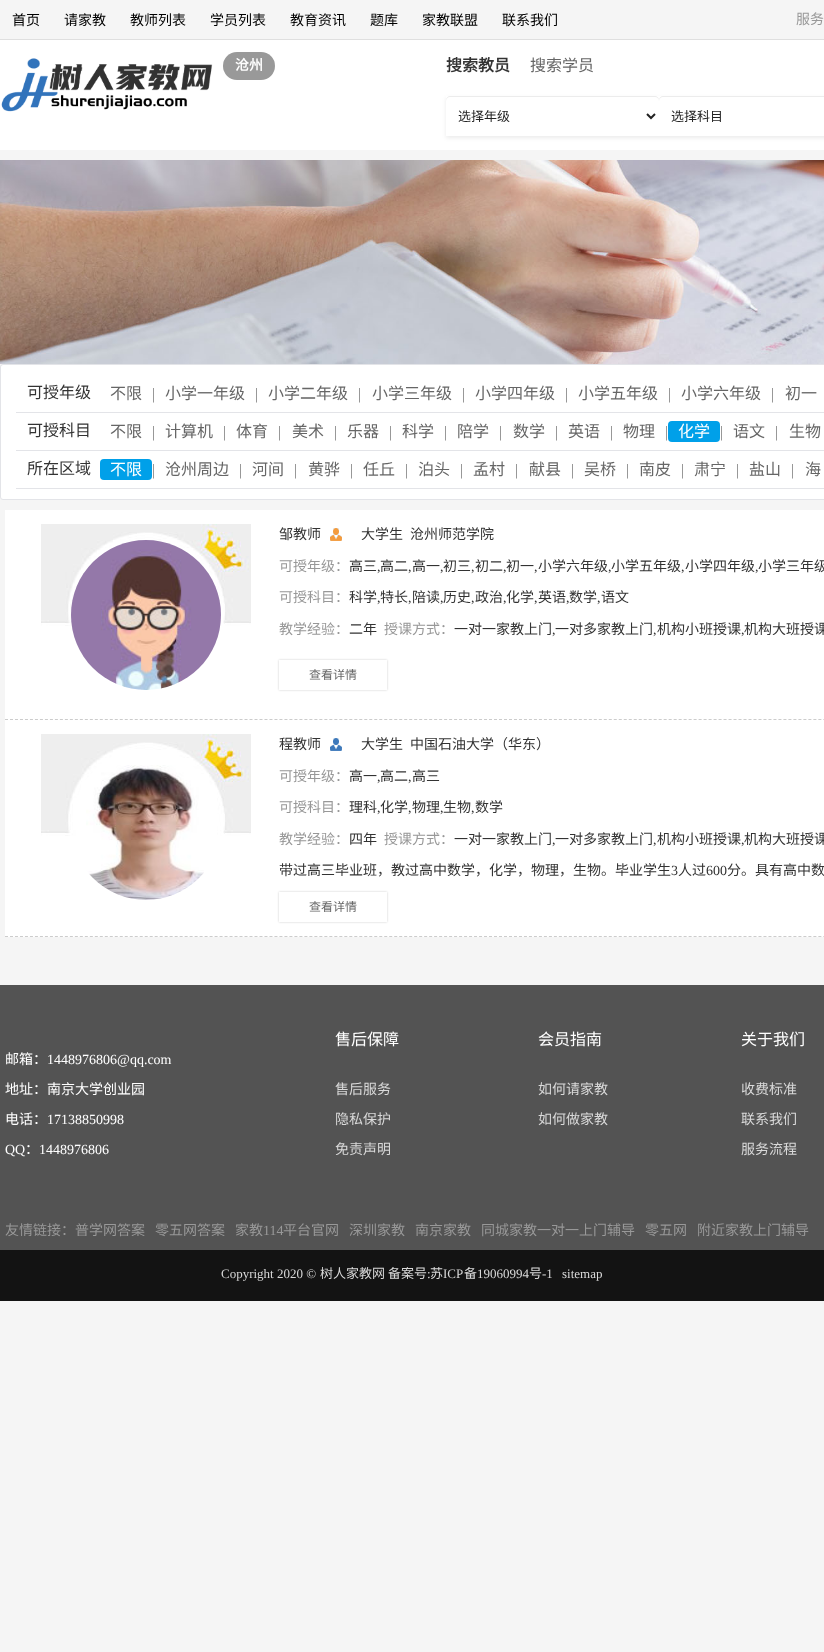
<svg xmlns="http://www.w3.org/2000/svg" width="824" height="1652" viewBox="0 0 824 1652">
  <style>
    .t1 { font: 14px Noto Sans CJK SC; fill: #000; }
    .t2 { font: 14px Noto Sans CJK SC; fill: #989898; }
    .t3 { font: bold 14px Noto Sans CJK SC; fill: #fff; }
    .t4 { font: bold 16px Noto Sans CJK SC; fill: #333; }
    .t5 { font: 16px Noto Sans CJK SC; fill: #666; }
    .t6 { font: 13px Noto Sans CJK SC; fill: #222; }
    .t7 { font: 16px Noto Sans CJK SC; fill: #333; }
    .t8 { font: 16px Liberation Serif; fill: #808080; }
    .t9 { font: 16px Noto Sans CJK SC; fill: #fff; }
    .t10 { font: 14px Noto Sans CJK SC; fill: #333; }
    .t11 { font: 14px Liberation Serif; fill: #333; }
    .t12 { font: 12px Noto Sans CJK SC; fill: #666; }
    .t13 { font: 14px Noto Sans CJK SC; fill: #fff; }
    .t14 { font: 14px Liberation Serif; fill: #fff; }
    .t15 { font: 14px Noto Sans CJK SC; fill: #d9d9d9; }
    .t16 { font: 14px Liberation Serif; fill: #989898; }
    .t17 { font: 13px Liberation Serif; fill: #d9d9d9; }
    .t18 { font: 13px Noto Sans CJK SC; fill: #d9d9d9; }
  </style>
  <defs>
    <clipPath id="clip1"><path d="M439 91H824V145H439ZM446 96H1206V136H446Z" clip-rule="evenodd"/></clipPath>
    <clipPath id="clip2"><path d="M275 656H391V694H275ZM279 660H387V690H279Z" clip-rule="evenodd"/></clipPath>
    <clipPath id="clip3"><path d="M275 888H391V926H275ZM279 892H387V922H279Z" clip-rule="evenodd"/></clipPath>
  </defs>
  <rect width="100%" height="100%" fill="#f5f5f5"/>
  <rect x="0" y="39" width="824" height="1" fill="#dfdfdf"/>
  <text x="12" y="25" class="t1">首页</text>
  <text x="64" y="25" class="t1">请家教</text>
  <text x="130" y="25" class="t1">教师列表</text>
  <text x="210" y="25" class="t1">学员列表</text>
  <text x="290" y="25" class="t1">教育资讯</text>
  <text x="370" y="25" class="t1">题库</text>
  <text x="422" y="25" class="t1">家教联盟</text>
  <text x="502" y="25" class="t1">联系我们</text>
  <text x="796" y="24" class="t2">服务</text>
  <rect x="0" y="40" width="824" height="110" fill="#fff"/>
  <image x="1" y="58" width="212" height="54" href="images/1.png"/>
  <rect x="223" y="52" width="52" height="28" rx="14" fill="#999"/>
  <text x="235" y="70" class="t3">沧州</text>
  <text x="446" y="71" class="t4">搜索教员</text>
  <text x="530" y="71" class="t5">搜索学员</text>
  <g clip-path="url(#clip1)">
    <rect x="446" y="98" width="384" height="40" fill="#00000014" filter="blur(2px)"/>
  </g>
  <path d="M450 97H655C657 97 659 99 659 101V100C659 98 657 96 655 96H450C448 96 446 98 446 100V101C446 99 448 97 450 97Z" fill="#ececec"/>
  <path d="M647 114L651 118L655 114" fill="none" stroke="#222" stroke-width="2"/>
  <text x="458" y="121" class="t6">选择年级</text>
  <path d="M663 97H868C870 97 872 99 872 101V100C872 98 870 96 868 96H663C661 96 659 98 659 100V101C659 99 661 97 663 97Z" fill="#ececec"/>
  <text x="671" y="121" class="t6">选择科目</text>
  <image x="0" y="160" width="824" height="204" href="images/2.png"/>
  <rect x="0.5" y="364.5" width="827" height="135" rx="2.5" fill="#fff" stroke="#e3e4e8"/>
  <rect x="16" y="412" width="808" height="1" fill="#e3e4e8"/>
  <text x="27" y="398" class="t7">可授年级</text>
  <text x="110" y="399" class="t5">不限</text>
  <text x="152" y="399" class="t8">|</text>
  <text x="165" y="399" class="t5">小学一年级</text>
  <text x="255" y="399" class="t8">|</text>
  <text x="268" y="399" class="t5">小学二年级</text>
  <text x="358" y="399" class="t8">|</text>
  <text x="372" y="399" class="t5">小学三年级</text>
  <text x="462" y="399" class="t8">|</text>
  <text x="475" y="399" class="t5">小学四年级</text>
  <text x="565" y="399" class="t8">|</text>
  <text x="578" y="399" class="t5">小学五年级</text>
  <text x="668" y="399" class="t8">|</text>
  <text x="681" y="399" class="t5">小学六年级</text>
  <text x="771" y="399" class="t8">|</text>
  <text x="785" y="399" class="t5">初一</text>
  <rect x="16" y="450" width="808" height="1" fill="#e3e4e8"/>
  <text x="27" y="436" class="t7">可授科目</text>
  <text x="110" y="437" class="t5">不限</text>
  <text x="152" y="437" class="t8">|</text>
  <text x="165" y="437" class="t5">计算机</text>
  <text x="223" y="437" class="t8">|</text>
  <text x="236" y="437" class="t5">体育</text>
  <text x="278" y="437" class="t8">|</text>
  <text x="292" y="437" class="t5">美术</text>
  <text x="334" y="437" class="t8">|</text>
  <text x="347" y="437" class="t5">乐器</text>
  <text x="389" y="437" class="t8">|</text>
  <text x="402" y="437" class="t5">科学</text>
  <text x="444" y="437" class="t8">|</text>
  <text x="457" y="437" class="t5">陪学</text>
  <text x="499" y="437" class="t8">|</text>
  <text x="513" y="437" class="t5">数学</text>
  <text x="555" y="437" class="t8">|</text>
  <text x="568" y="437" class="t5">英语</text>
  <text x="610" y="437" class="t8">|</text>
  <text x="623" y="437" class="t5">物理</text>
  <text x="665" y="437" class="t8">|</text>
  <rect x="668" y="421" width="52" height="21" rx="4" fill="#00a0e9"/>
  <text x="678" y="437" class="t9">化学</text>
  <text x="720" y="437" class="t8">|</text>
  <text x="733" y="437" class="t5">语文</text>
  <text x="775" y="437" class="t8">|</text>
  <text x="789" y="437" class="t5">生物</text>
  <rect x="16" y="488" width="808" height="1" fill="#e3e4e8"/>
  <text x="27" y="474" class="t7">所在区域</text>
  <rect x="100" y="459" width="52" height="21" rx="4" fill="#00a0e9"/>
  <text x="110" y="475" class="t9">不限</text>
  <text x="152" y="475" class="t8">|</text>
  <text x="165" y="475" class="t5">沧州周边</text>
  <text x="239" y="475" class="t8">|</text>
  <text x="252" y="475" class="t5">河间</text>
  <text x="294" y="475" class="t8">|</text>
  <text x="308" y="475" class="t5">黄骅</text>
  <text x="350" y="475" class="t8">|</text>
  <text x="363" y="475" class="t5">任丘</text>
  <text x="405" y="475" class="t8">|</text>
  <text x="418" y="475" class="t5">泊头</text>
  <text x="460" y="475" class="t8">|</text>
  <text x="473" y="475" class="t5">孟村</text>
  <text x="515" y="475" class="t8">|</text>
  <text x="529" y="475" class="t5">献县</text>
  <text x="571" y="475" class="t8">|</text>
  <text x="584" y="475" class="t5">吴桥</text>
  <text x="626" y="475" class="t8">|</text>
  <text x="639" y="475" class="t5">南皮</text>
  <text x="681" y="475" class="t8">|</text>
  <text x="694" y="475" class="t5">肃宁</text>
  <text x="736" y="475" class="t8">|</text>
  <text x="749" y="475" class="t5">盐山</text>
  <text x="791" y="475" class="t8">|</text>
  <text x="805" y="475" class="t5">海</text>
  <rect x="5" y="510" width="819" height="427" fill="#fff"/>
  <path d="M5 719.5H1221" fill="none" stroke="#ccc" stroke-dasharray="3 1.99"/>
  <image x="41" y="524" width="210" height="102" href="images/3.png"/>
  <image x="71" y="540" width="150" height="150" href="images/4.png"/>
  <text x="279" y="539" class="t10">邹教师</text>
  <image x="330" y="528" width="12" height="13" href="images/5.png"/>
  <text x="361" y="539" class="t10">大学生</text>
  <text x="410" y="539" class="t10">沧州师范学院</text>
  <text x="279" y="571" class="t2">可授年级：</text>
  <text x="349" y="571" class="t10">高三</text>
  <text x="377" y="571" class="t11">,</text>
  <text x="380" y="571" class="t10">高二</text>
  <text x="408" y="571" class="t11">,</text>
  <text x="412" y="571" class="t10">高一</text>
  <text x="440" y="571" class="t11">,</text>
  <text x="443" y="571" class="t10">初三</text>
  <text x="471" y="571" class="t11">,</text>
  <text x="475" y="571" class="t10">初二</text>
  <text x="503" y="571" class="t11">,</text>
  <text x="506" y="571" class="t10">初一</text>
  <text x="534" y="571" class="t11">,</text>
  <text x="538" y="571" class="t10">小学六年级</text>
  <text x="608" y="571" class="t11">,</text>
  <text x="611" y="571" class="t10">小学五年级</text>
  <text x="681" y="571" class="t11">,</text>
  <text x="685" y="571" class="t10">小学四年级</text>
  <text x="755" y="571" class="t11">,</text>
  <text x="758" y="571" class="t10">小学三年级</text>
  <text x="279" y="602" class="t2">可授科目：</text>
  <text x="349" y="602" class="t10">科学</text>
  <text x="377" y="602" class="t11">,</text>
  <text x="380" y="602" class="t10">特长</text>
  <text x="408" y="602" class="t11">,</text>
  <text x="412" y="602" class="t10">陪读</text>
  <text x="440" y="602" class="t11">,</text>
  <text x="443" y="602" class="t10">历史</text>
  <text x="471" y="602" class="t11">,</text>
  <text x="475" y="602" class="t10">政治</text>
  <text x="503" y="602" class="t11">,</text>
  <text x="506" y="602" class="t10">化学</text>
  <text x="534" y="602" class="t11">,</text>
  <text x="538" y="602" class="t10">英语</text>
  <text x="566" y="602" class="t11">,</text>
  <text x="569" y="602" class="t10">数学</text>
  <text x="597" y="602" class="t11">,</text>
  <text x="601" y="602" class="t10">语文</text>
  <text x="279" y="634" class="t2">教学经验：</text>
  <text x="349" y="634" class="t10">二年</text>
  <text x="384" y="634" class="t2">授课方式：</text>
  <text x="454" y="634" class="t10">一对一家教上门</text>
  <text x="552" y="634" class="t11">,</text>
  <text x="555" y="634" class="t10">一对多家教上门</text>
  <text x="653" y="634" class="t11">,</text>
  <text x="657" y="634" class="t10">机构小班授课</text>
  <text x="741" y="634" class="t11">,</text>
  <text x="744" y="634" class="t10">机构大班授课</text>
  <g clip-path="url(#clip2)">
    <rect x="279" y="660" width="108" height="30" fill="#00000033" filter="blur(1px)"/>
  </g>
  <text x="309" y="679" class="t12">查看详情</text>
  <path d="M5 936.5H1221" fill="none" stroke="#ccc" stroke-dasharray="3 1.99"/>
  <image x="41" y="734" width="210" height="102" href="images/3.png"/>
  <image x="86" y="765" width="118" height="135" href="images/6.png"/>
  <text x="279" y="749" class="t10">程教师</text>
  <image x="330" y="738" width="12" height="13" href="images/7.png"/>
  <text x="361" y="749" class="t10">大学生</text>
  <text x="410" y="749" class="t10">中国石油大学（华东）</text>
  <text x="279" y="781" class="t2">可授年级：</text>
  <text x="349" y="781" class="t10">高一</text>
  <text x="377" y="781" class="t11">,</text>
  <text x="380" y="781" class="t10">高二</text>
  <text x="408" y="781" class="t11">,</text>
  <text x="412" y="781" class="t10">高三</text>
  <text x="279" y="812" class="t2">可授科目：</text>
  <text x="349" y="812" class="t10">理科</text>
  <text x="377" y="812" class="t11">,</text>
  <text x="380" y="812" class="t10">化学</text>
  <text x="408" y="812" class="t11">,</text>
  <text x="412" y="812" class="t10">物理</text>
  <text x="440" y="812" class="t11">,</text>
  <text x="443" y="812" class="t10">生物</text>
  <text x="471" y="812" class="t11">,</text>
  <text x="475" y="812" class="t10">数学</text>
  <text x="279" y="844" class="t2">教学经验：</text>
  <text x="349" y="844" class="t10">四年</text>
  <text x="384" y="844" class="t2">授课方式：</text>
  <text x="454" y="844" class="t10">一对一家教上门</text>
  <text x="552" y="844" class="t11">,</text>
  <text x="555" y="844" class="t10">一对多家教上门</text>
  <text x="653" y="844" class="t11">,</text>
  <text x="657" y="844" class="t10">机构小班授课</text>
  <text x="741" y="844" class="t11">,</text>
  <text x="744" y="844" class="t10">机构大班授课</text>
  <text x="279" y="875" class="t10">带过高三毕业班，教过高中数学，化学，物理，生物。毕业学生</text>
  <text x="671" y="875" class="t11">3</text>
  <text x="678" y="875" class="t10">人过</text>
  <text x="706" y="875" class="t11">600</text>
  <text x="727" y="875" class="t10">分。具有高中数</text>
  <g clip-path="url(#clip3)">
    <rect x="279" y="892" width="108" height="30" fill="#00000033" filter="blur(1px)"/>
  </g>
  <text x="309" y="911" class="t12">查看详情</text>
  <rect x="0" y="985" width="824" height="265" fill="#535353"/>
  <text x="5" y="1064" class="t13">邮箱：</text>
  <text x="47" y="1064" class="t14">1448976806@qq.com</text>
  <text x="5" y="1094" class="t13">地址：南京大学创业园</text>
  <text x="5" y="1124" class="t13">电话：</text>
  <text x="47" y="1124" class="t14">17138850998</text>
  <text x="5" y="1154" class="t14">QQ</text>
  <text x="25" y="1154" class="t13">：</text>
  <text x="39" y="1154" class="t14">1448976806</text>
  <text x="335" y="1045" class="t9">售后保障</text>
  <text x="335" y="1094" class="t15">售后服务</text>
  <text x="335" y="1124" class="t15">隐私保护</text>
  <text x="335" y="1154" class="t15">免责声明</text>
  <text x="538" y="1045" class="t9">会员指南</text>
  <text x="538" y="1094" class="t15">如何请家教</text>
  <text x="538" y="1124" class="t15">如何做家教</text>
  <text x="741" y="1045" class="t9">关于我们</text>
  <text x="741" y="1094" class="t15">收费标准</text>
  <text x="741" y="1124" class="t15">联系我们</text>
  <text x="741" y="1154" class="t15">服务流程</text>
  <text x="5" y="1235" class="t2">友情链接：普学网答案</text>
  <text x="155" y="1235" class="t2">零五网答案</text>
  <text x="235" y="1235" class="t2">家教</text>
  <text x="263" y="1235" class="t16">114</text>
  <text x="283" y="1235" class="t2">平台官网</text>
  <text x="349" y="1235" class="t2">深圳家教</text>
  <text x="415" y="1235" class="t2">南京家教</text>
  <text x="481" y="1235" class="t2">同城家教一对一上门辅导</text>
  <text x="645" y="1235" class="t2">零五网</text>
  <text x="697" y="1235" class="t2">附近家教上门辅导</text>
  <rect x="0" y="1250" width="824" height="51" fill="#131313"/>
  <text x="221" y="1278" class="t17">Copyright 2020 ©</text>
  <text x="320" y="1278" class="t18">树人家教网</text>
  <text x="388" y="1278" class="t18">备案号</text>
  <text x="427" y="1278" class="t17">:</text>
  <text x="430" y="1278" class="t18">苏</text>
  <text x="443" y="1278" class="t17">ICP</text>
  <text x="464" y="1278" class="t18">备</text>
  <text x="477" y="1278" class="t17">19060994</text>
  <text x="529" y="1278" class="t18">号</text>
  <text x="542" y="1278" class="t17">-1</text>
  <text x="562" y="1278" class="t17">sitemap</text>
</svg>
